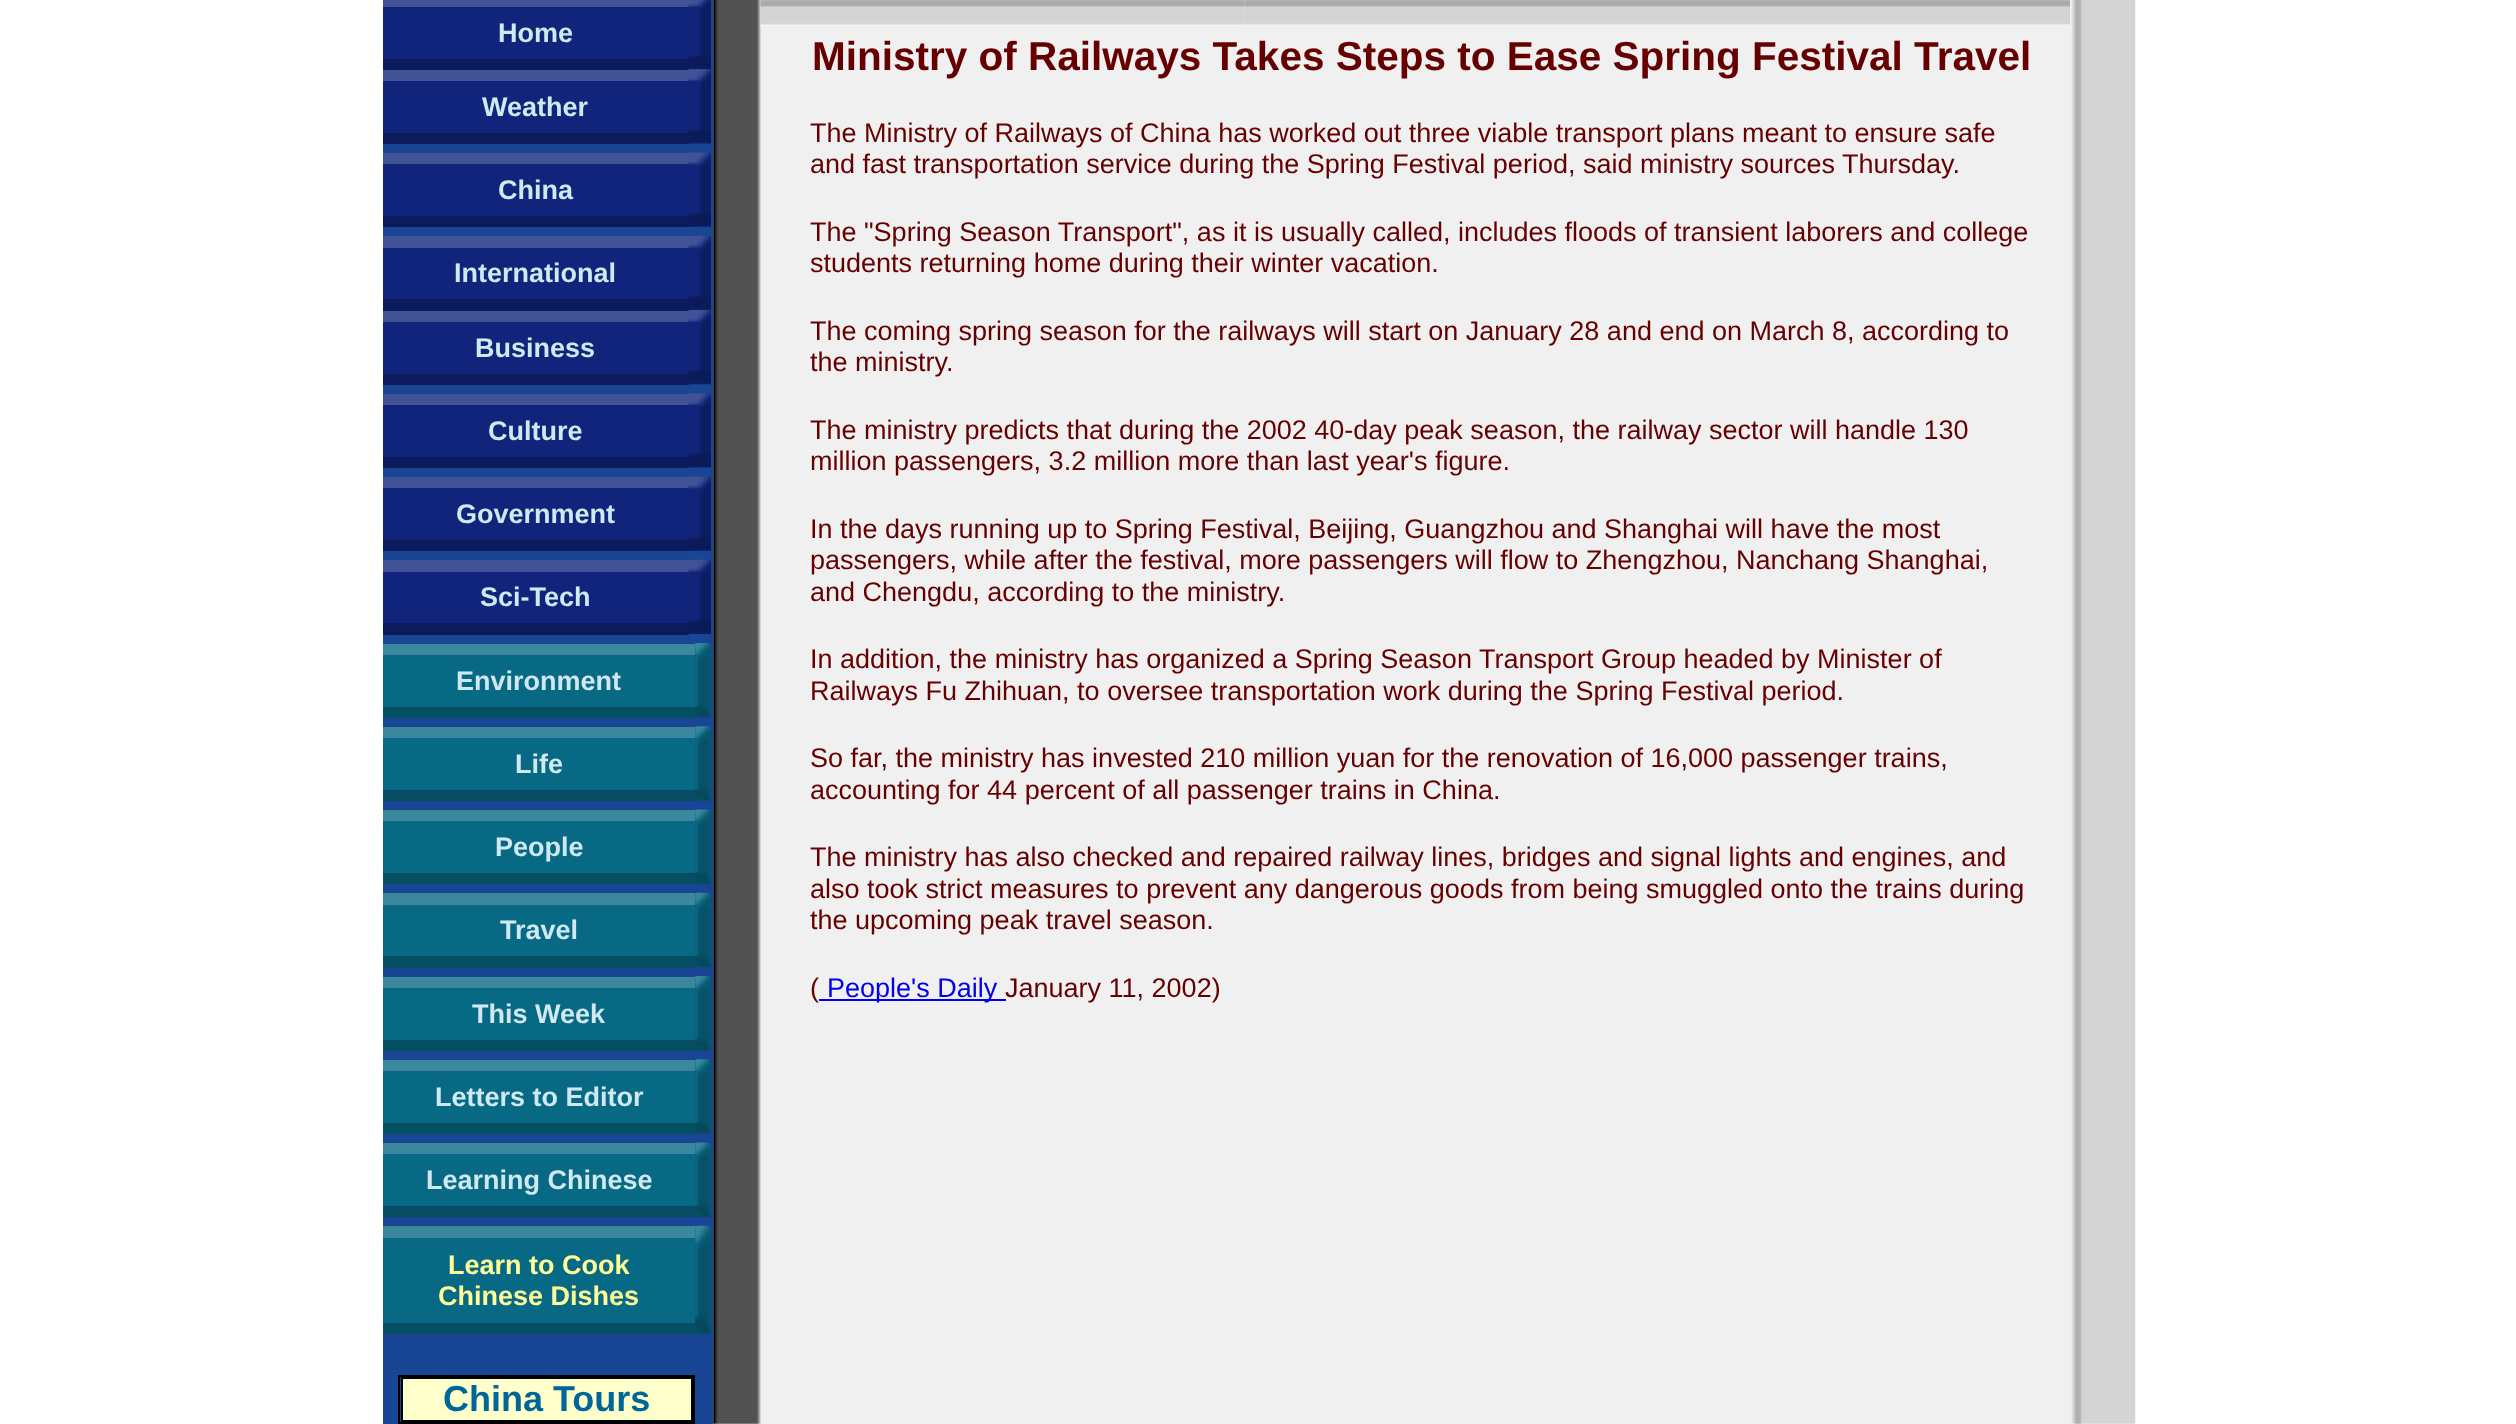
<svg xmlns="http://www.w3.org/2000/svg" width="2516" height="1424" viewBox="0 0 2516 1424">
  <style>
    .t1 { font: bold 27px Liberation Sans; fill: #d0e8f0; }
    .t2 { font: bold 27px Liberation Sans; fill: #ff9; }
    .t3 { font: bold 36px Liberation Sans; fill: #069; }
    .t4 { font: bold 40.5px Liberation Sans; fill: #600; }
    .t5 { font: 27px Liberation Sans; fill: #600; }
    .t6 { font: 27px Liberation Sans; fill: #00e; }
  </style>
  <rect width="100%" height="100%" fill="#fff"/>
  <rect x="383" y="0" width="330" height="1424" fill="#184594"/>
  <rect x="383" y="0" width="306" height="7" fill="#425296"/>
  <rect x="383" y="7" width="306" height="52" fill="#10247b"/>
  <rect x="383" y="59" width="306" height="11" fill="#0c1b5b"/>
  <image x="688" y="0" width="23" height="70" href="images/1.png"/>
  <text x="498" y="42" class="t1">Home</text>
  <rect x="383" y="70" width="306" height="11" fill="#425296"/>
  <rect x="383" y="81" width="306" height="52" fill="#10247b"/>
  <rect x="383" y="133" width="306" height="11" fill="#0c1b5b"/>
  <image x="688" y="69" width="23" height="75" href="images/2.png"/>
  <text x="482" y="116" class="t1">Weather</text>
  <rect x="383" y="153" width="306" height="11" fill="#425296"/>
  <rect x="383" y="164" width="306" height="52" fill="#10247b"/>
  <rect x="383" y="216" width="306" height="11" fill="#0c1b5b"/>
  <image x="688" y="152" width="23" height="75" href="images/3.png"/>
  <text x="498" y="199" class="t1">China</text>
  <rect x="383" y="236" width="306" height="12" fill="#425296"/>
  <rect x="383" y="248" width="306" height="51" fill="#10247b"/>
  <rect x="383" y="299" width="306" height="12" fill="#0c1b5b"/>
  <image x="688" y="235" width="23" height="75" href="images/4.png"/>
  <text x="454" y="282" class="t1">International</text>
  <rect x="383" y="311" width="306" height="11" fill="#425296"/>
  <rect x="383" y="322" width="306" height="52" fill="#10247b"/>
  <rect x="383" y="374" width="306" height="11" fill="#0c1b5b"/>
  <image x="688" y="310" width="23" height="75" href="images/5.png"/>
  <text x="475" y="357" class="t1">Business</text>
  <rect x="383" y="394" width="306" height="11" fill="#425296"/>
  <rect x="383" y="405" width="306" height="52" fill="#10247b"/>
  <rect x="383" y="457" width="306" height="11" fill="#0c1b5b"/>
  <image x="688" y="393" width="23" height="75" href="images/6.png"/>
  <text x="488" y="440" class="t1">Culture</text>
  <rect x="383" y="477" width="306" height="11" fill="#425296"/>
  <rect x="383" y="488" width="306" height="52" fill="#10247b"/>
  <rect x="383" y="540" width="306" height="11" fill="#0c1b5b"/>
  <image x="688" y="476" width="23" height="75" href="images/3.png"/>
  <text x="456" y="523" class="t1">Government</text>
  <rect x="383" y="560" width="306" height="12" fill="#425296"/>
  <rect x="383" y="572" width="306" height="51" fill="#10247b"/>
  <rect x="383" y="623" width="306" height="12" fill="#0c1b5b"/>
  <image x="688" y="559" width="23" height="75" href="images/4.png"/>
  <text x="480" y="606" class="t1">Sci-Tech</text>
  <rect x="383" y="644" width="312" height="11" fill="#3b889e"/>
  <image x="695" y="643" width="16" height="75" href="images/7.png"/>
  <rect x="383" y="655" width="312" height="52" fill="#086984"/>
  <text x="456" y="690" class="t1">Environment</text>
  <rect x="383" y="707" width="312" height="11" fill="#064e62"/>
  <rect x="383" y="727" width="312" height="11" fill="#3b889e"/>
  <image x="695" y="726" width="16" height="75" href="images/8.png"/>
  <rect x="383" y="738" width="312" height="52" fill="#086984"/>
  <text x="515" y="773" class="t1">Life</text>
  <rect x="383" y="790" width="312" height="11" fill="#064e62"/>
  <rect x="383" y="810" width="312" height="11" fill="#3b889e"/>
  <image x="695" y="809" width="16" height="75" href="images/9.png"/>
  <rect x="383" y="821" width="312" height="52" fill="#086984"/>
  <text x="495" y="856" class="t1">People</text>
  <rect x="383" y="873" width="312" height="11" fill="#064e62"/>
  <rect x="383" y="893" width="312" height="12" fill="#3b889e"/>
  <image x="695" y="892" width="16" height="75" href="images/10.png"/>
  <rect x="383" y="905" width="312" height="51" fill="#086984"/>
  <text x="500" y="939" class="t1">Travel</text>
  <rect x="383" y="956" width="312" height="12" fill="#064e62"/>
  <rect x="383" y="977" width="312" height="11" fill="#3b889e"/>
  <image x="695" y="976" width="16" height="75" href="images/11.png"/>
  <rect x="383" y="988" width="312" height="52" fill="#086984"/>
  <text x="472" y="1023" class="t1">This Week</text>
  <rect x="383" y="1040" width="312" height="11" fill="#064e62"/>
  <rect x="383" y="1060" width="312" height="11" fill="#3b889e"/>
  <image x="695" y="1059" width="16" height="75" href="images/8.png"/>
  <rect x="383" y="1071" width="312" height="52" fill="#086984"/>
  <text x="435" y="1106" class="t1">Letters to Editor</text>
  <rect x="383" y="1123" width="312" height="11" fill="#064e62"/>
  <rect x="383" y="1143" width="312" height="11" fill="#3b889e"/>
  <image x="695" y="1142" width="16" height="75" href="images/9.png"/>
  <rect x="383" y="1154" width="312" height="52" fill="#086984"/>
  <text x="426" y="1189" class="t1">Learning Chinese</text>
  <rect x="383" y="1206" width="312" height="11" fill="#064e62"/>
  <rect x="383" y="1226" width="312" height="12" fill="#3b889e"/>
  <image x="695" y="1225" width="16" height="109" href="images/12.png"/>
  <rect x="383" y="1238" width="312" height="85" fill="#086984"/>
  <text x="448" y="1274" class="t2">Learn to Cook</text>
  <text x="438" y="1305" class="t2">Chinese Dishes</text>
  <rect x="383" y="1323" width="312" height="11" fill="#064e62"/>
  <rect x="399" y="1376" width="295" height="47" fill="none" stroke="#000" stroke-width="2"/>
  <rect x="402" y="1378" width="290" height="43" fill="#ffc" stroke="#000" stroke-width="2"/>
  <text x="443" y="1411" class="t3">China Tours</text>
  <image x="713" y="0" width="48" height="1424" href="images/13.png"/>
  <rect x="761" y="0" width="1309" height="1424" fill="#f0f0f0"/>
  <image x="760" y="0" width="485" height="27" href="images/14.png"/>
  <image x="1244" y="0" width="826" height="25" href="images/15.png"/>
  <text x="812" y="70" class="t4">Ministry of Railways Takes Steps to Ease Spring Festival Travel</text>
  <text x="810" y="142" class="t5">The Ministry of Railways of China has worked out three viable transport plans meant to ensure safe</text>
  <text x="810" y="173" class="t5">and fast transportation service during the Spring Festival period, said ministry sources Thursday.</text>
  <text x="810" y="241" class="t5">The "Spring Season Transport", as it is usually called, includes floods of transient laborers and college</text>
  <text x="810" y="272" class="t5">students returning home during their winter vacation.</text>
  <text x="810" y="340" class="t5">The coming spring season for the railways will start on January 28 and end on March 8, according to</text>
  <text x="810" y="371" class="t5">the ministry.</text>
  <text x="810" y="439" class="t5">The ministry predicts that during the 2002 40-day peak season, the railway sector will handle 130</text>
  <text x="810" y="470" class="t5">million passengers, 3.2 million more than last year's figure.</text>
  <text x="810" y="538" class="t5">In the days running up to Spring Festival, Beijing, Guangzhou and Shanghai will have the most</text>
  <text x="810" y="569" class="t5">passengers, while after the festival, more passengers will flow to Zhengzhou, Nanchang Shanghai,</text>
  <text x="810" y="601" class="t5">and Chengdu, according to the ministry.</text>
  <text x="810" y="668" class="t5">In addition, the ministry has organized a Spring Season Transport Group headed by Minister of</text>
  <text x="810" y="700" class="t5">Railways Fu Zhihuan, to oversee transportation work during the Spring Festival period.</text>
  <text x="810" y="767" class="t5">So far, the ministry has invested 210 million yuan for the renovation of 16,000 passenger trains,</text>
  <text x="810" y="799" class="t5">accounting for 44 percent of all passenger trains in China.</text>
  <text x="810" y="866" class="t5">The ministry has also checked and repaired railway lines, bridges and signal lights and engines, and</text>
  <text x="810" y="898" class="t5">also took strict measures to prevent any dangerous goods from being smuggled onto the trains during</text>
  <text x="810" y="929" class="t5">the upcoming peak travel season.</text>
  <text x="810" y="997" class="t5">(</text>
  <rect x="819" y="999" width="187" height="2" fill="#00e"/>
  <text x="827" y="997" class="t6">People's Daily</text>
  <text x="1005" y="997" class="t5">January 11, 2002)</text>
  <image x="2070" y="0" width="66" height="1424" href="images/16.png"/>
</svg>
